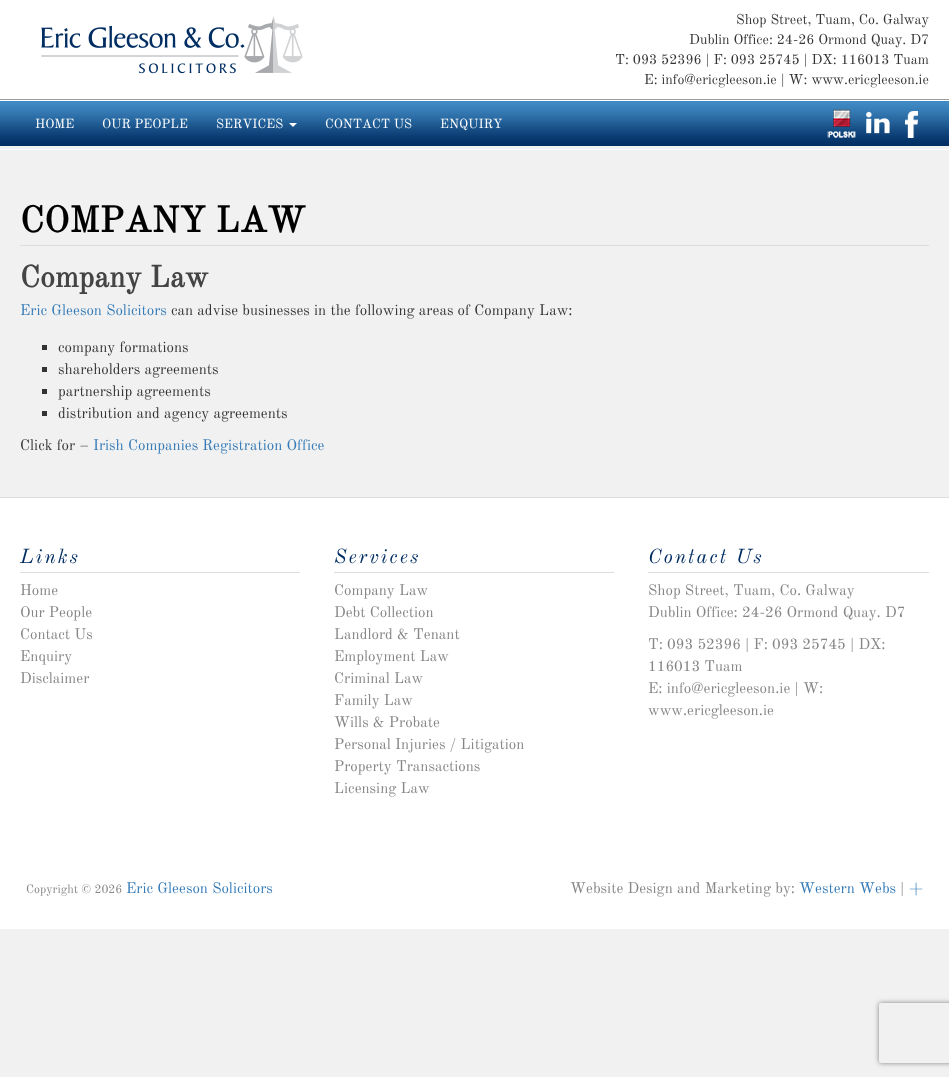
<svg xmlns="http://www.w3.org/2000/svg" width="949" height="1077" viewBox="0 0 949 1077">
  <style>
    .t1 { font: 14px Old Standard TT; fill: #333; }
    .t2 { font: 13px Old Standard TT; fill: #fff; }
    .t3 { font: bold 36px Old Standard TT; fill: #000; }
    .t4 { font: bold 30px Old Standard TT; fill: #444; }
    .t5 { font: 15px Old Standard TT; fill: #337ab7; }
    .t6 { font: 15px Old Standard TT; fill: #333; }
    .t7 { font: italic 20px Old Standard TT; letter-spacing: 2px; fill: #002d62; }
    .t8 { font: 15px Old Standard TT; fill: #858585; }
    .t9 { font: 12px Old Standard TT; fill: #858585; }
  </style>
  <defs>
    <clipPath id="clip1"><path d="M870 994H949V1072H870ZM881 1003H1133C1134 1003 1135 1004 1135 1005V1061C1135 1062 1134 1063 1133 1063H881C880 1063 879 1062 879 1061V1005C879 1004 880 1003 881 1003Z" clip-rule="evenodd"/></clipPath>
  </defs>
  <rect width="100%" height="100%" fill="#f1f1f1"/>
  <rect x="0" y="0" width="949" height="99" fill="#fff"/>
  <rect x="0" y="99" width="949" height="1" fill="#9f9f9f"/>
  <image x="41" y="16" width="262" height="58" href="images/1.png"/>
  <text x="736" y="24" class="t1">Shop Street, Tuam, Co. Galway</text>
  <text x="689" y="44" class="t1">Dublin Office: 24-26 Ormond Quay. D7</text>
  <text x="615" y="64" class="t1">T: 093 52396 | F: 093 25745 | DX: 116013 Tuam</text>
  <text x="644" y="84" class="t1">E: info@ericgleeson.ie | W: www.ericgleeson.ie</text>
  <image x="0" y="101" width="949" height="45" href="images/2.png"/>
  <rect x="0" y="100" width="949" height="1" fill="#fff"/>
  <rect x="0" y="149" width="949" height="1" fill="#fff"/>
  <text x="35" y="128" class="t2">HOME</text>
  <text x="102" y="128" class="t2">OUR PEOPLE</text>
  <text x="216" y="128" class="t2">SERVICES</text>
  <path d="M289 123H297L293 127Z" fill="#fff"/>
  <text x="325" y="128" class="t2">CONTACT US</text>
  <text x="440" y="128" class="t2">ENQUIRY</text>
  <image x="827" y="109" width="29" height="29" href="images/3.png"/>
  <image x="866" y="111" width="24" height="23" href="images/4.png"/>
  <image x="905" y="111" width="13" height="27" href="images/5.png"/>
  <rect x="20" y="245" width="909" height="1" fill="#ddd"/>
  <text x="20" y="232" class="t3">COMPANY LAW</text>
  <text x="20" y="287" class="t4">Company Law</text>
  <text x="20" y="315" class="t5">Eric Gleeson Solicitors</text>
  <text x="171" y="315" class="t6">can advise businesses in the following areas of Company Law:</text>
  <rect x="42" y="345" width="5" height="5" fill="#333"/>
  <text x="58" y="352" class="t6">company formations</text>
  <rect x="42" y="367" width="5" height="5" fill="#333"/>
  <text x="58" y="374" class="t6">shareholders agreements</text>
  <rect x="42" y="389" width="5" height="5" fill="#333"/>
  <text x="58" y="396" class="t6">partnership agreements</text>
  <rect x="42" y="411" width="5" height="5" fill="#333"/>
  <text x="58" y="418" class="t6">distribution and agency agreements</text>
  <text x="20" y="450" class="t6">Click for –</text>
  <text x="93" y="450" class="t5">Irish Companies Registration Office</text>
  <rect x="0" y="498" width="949" height="431" fill="#fff"/>
  <rect x="0" y="497" width="949" height="1" fill="#ddd"/>
  <rect x="20" y="572" width="280" height="1" fill="#ddd"/>
  <text x="20" y="563" class="t7">Links</text>
  <text x="20" y="595" class="t8">Home</text>
  <text x="20" y="617" class="t8">Our People</text>
  <text x="20" y="639" class="t8">Contact Us</text>
  <text x="20" y="661" class="t8">Enquiry</text>
  <text x="20" y="683" class="t8">Disclaimer</text>
  <rect x="334" y="572" width="280" height="1" fill="#ddd"/>
  <text x="334" y="563" class="t7">Services</text>
  <text x="334" y="595" class="t8">Company Law</text>
  <text x="334" y="617" class="t8">Debt Collection</text>
  <text x="334" y="639" class="t8">Landlord &amp; Tenant</text>
  <text x="334" y="661" class="t8">Employment Law</text>
  <text x="334" y="683" class="t8">Criminal Law</text>
  <text x="334" y="705" class="t8">Family Law</text>
  <text x="334" y="727" class="t8">Wills &amp; Probate</text>
  <text x="334" y="749" class="t8">Personal Injuries / Litigation</text>
  <text x="334" y="771" class="t8">Property Transactions</text>
  <text x="334" y="793" class="t8">Licensing Law</text>
  <rect x="648" y="572" width="281" height="1" fill="#ddd"/>
  <text x="648" y="563" class="t7">Contact Us</text>
  <text x="648" y="595" class="t8">Shop Street, Tuam, Co. Galway</text>
  <text x="648" y="617" class="t8">Dublin Office: 24-26 Ormond Quay. D7</text>
  <text x="648" y="649" class="t8">T: 093 52396 | F: 093 25745 | DX:</text>
  <text x="648" y="671" class="t8">116013 Tuam</text>
  <text x="648" y="693" class="t8">E: info@ericgleeson.ie | W:</text>
  <text x="648" y="715" class="t8">www.ericgleeson.ie</text>
  <text x="26" y="893" class="t9">Copyright © 2026</text>
  <text x="126" y="893" class="t5">Eric Gleeson Solicitors</text>
  <text x="570" y="893" class="t8">Website Design and Marketing by:</text>
  <text x="799" y="893" class="t5">Western Webs</text>
  <text x="900" y="893" class="t8">|</text>
  <text x="909" y="893" class="t5">+</text>
  <g clip-path="url(#clip1)">
    <rect x="879" y="1003" width="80" height="60" rx="2" fill="#808080" filter="blur(2.5px)"/>
  </g>
</svg>
